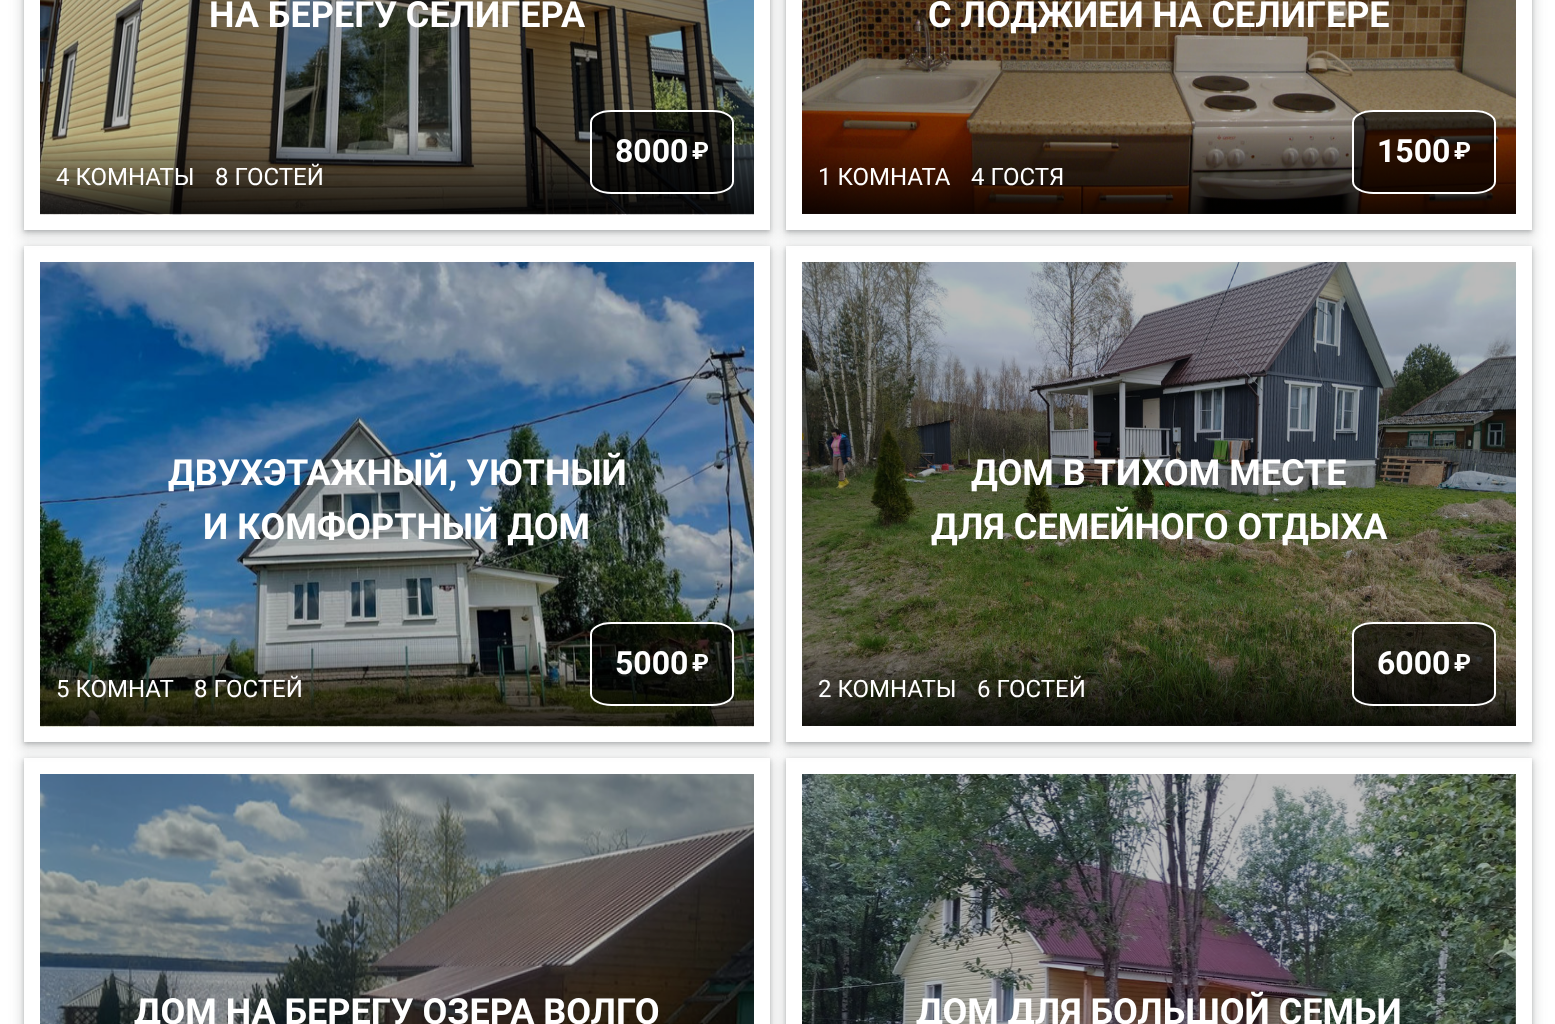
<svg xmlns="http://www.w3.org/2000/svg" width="1555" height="1024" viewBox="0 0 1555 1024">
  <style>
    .t1 { font: bold 36px Roboto; fill: #fff; }
    .t2 { font: bold 32px Roboto; fill: #fff; }
    .t3 { font: bold 24px Roboto; fill: #fff; }
    .t4 { font: 24px Roboto; fill: #fff; }
  </style>
  <defs>
    <clipPath id="clip1"><path d="M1 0H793V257H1ZM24-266H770V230H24Z" clip-rule="evenodd"/></clipPath>
    <clipPath id="clip2"><path d="M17 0H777V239H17ZM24-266H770V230H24Z" clip-rule="evenodd"/></clipPath>
    <linearGradient id="g1" gradientUnits="userSpaceOnUse" x1="397" y1="134" x2="397" y2="214"><stop offset="0" stop-color="#000" stop-opacity="0"/><stop offset="1" stop-color="#000" stop-opacity="0.8"/></linearGradient>
    <clipPath id="clip3"><path d="M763 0H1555V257H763ZM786-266H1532V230H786Z" clip-rule="evenodd"/></clipPath>
    <clipPath id="clip4"><path d="M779 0H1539V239H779ZM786-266H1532V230H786Z" clip-rule="evenodd"/></clipPath>
    <linearGradient id="g2" gradientUnits="userSpaceOnUse" x1="1159" y1="134" x2="1159" y2="214"><stop offset="0" stop-color="#000" stop-opacity="0"/><stop offset="1" stop-color="#000" stop-opacity="0.8"/></linearGradient>
    <clipPath id="clip5"><path d="M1 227H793V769H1ZM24 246H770V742H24Z" clip-rule="evenodd"/></clipPath>
    <clipPath id="clip6"><path d="M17 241H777V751H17ZM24 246H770V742H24Z" clip-rule="evenodd"/></clipPath>
    <linearGradient id="g3" gradientUnits="userSpaceOnUse" x1="397" y1="646" x2="397" y2="726"><stop offset="0" stop-color="#000" stop-opacity="0"/><stop offset="1" stop-color="#000" stop-opacity="0.8"/></linearGradient>
    <clipPath id="clip7"><path d="M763 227H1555V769H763ZM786 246H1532V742H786Z" clip-rule="evenodd"/></clipPath>
    <clipPath id="clip8"><path d="M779 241H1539V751H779ZM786 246H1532V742H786Z" clip-rule="evenodd"/></clipPath>
    <linearGradient id="g4" gradientUnits="userSpaceOnUse" x1="1159" y1="646" x2="1159" y2="726"><stop offset="0" stop-color="#000" stop-opacity="0"/><stop offset="1" stop-color="#000" stop-opacity="0.8"/></linearGradient>
    <clipPath id="clip9"><path d="M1 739H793V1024H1ZM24 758H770V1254H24Z" clip-rule="evenodd"/></clipPath>
    <clipPath id="clip10"><path d="M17 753H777V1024H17ZM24 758H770V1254H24Z" clip-rule="evenodd"/></clipPath>
    <clipPath id="clip11"><path d="M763 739H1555V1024H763ZM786 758H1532V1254H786Z" clip-rule="evenodd"/></clipPath>
    <clipPath id="clip12"><path d="M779 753H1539V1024H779ZM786 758H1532V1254H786Z" clip-rule="evenodd"/></clipPath>
  </defs>
  <rect width="100%" height="100%" fill="#fff"/>
  <g clip-path="url(#clip1)">
    <rect x="20" y="-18" width="754" height="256" fill="#3c404326" filter="blur(6px)"/>
  </g>
  <g clip-path="url(#clip2)">
    <rect x="24" y="-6" width="746" height="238" fill="#3c40434d" filter="blur(2px)"/>
  </g>
  <image x="40" y="0" width="714" height="215" href="images/1.png"/>
  <text x="209" y="27" class="t1">НА БЕРЕГУ СЕЛИГЕРА</text>
  <rect x="40" y="136" width="714" height="78" fill="url(#g1)"/>
  <path d="M612 110H712C724 110 734 116 734 123V181C734 188 724 194 712 194H612C600 194 590 188 590 181V123C590 116 600 110 612 110Z" fill="#00000099"/>
  <path d="M611.5 111H712.5C724 111 733 116 733 122.5V181.5C733 188 724 193 712.5 193H611.5C600 193 591 188 591 181.5V122.5C591 116 600 111 611.5 111Z" fill="none" stroke="#fff" stroke-width="2"/>
  <text x="615" y="162" class="t2">8000</text>
  <text x="692" y="159" class="t3">₽</text>
  <text x="56" y="185" class="t4">4 КОМНАТЫ</text>
  <text x="215" y="185" class="t4">8 ГОСТЕЙ</text>
  <g clip-path="url(#clip3)">
    <rect x="782" y="-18" width="754" height="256" fill="#3c404326" filter="blur(6px)"/>
  </g>
  <g clip-path="url(#clip4)">
    <rect x="786" y="-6" width="746" height="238" fill="#3c40434d" filter="blur(2px)"/>
  </g>
  <image x="802" y="0" width="714" height="214" href="images/2.png"/>
  <text x="928" y="27" class="t1">С ЛОДЖИЕЙ НА СЕЛИГЕРЕ</text>
  <rect x="802" y="136" width="714" height="78" fill="url(#g2)"/>
  <path d="M1374 110H1474C1486 110 1496 116 1496 123V181C1496 188 1486 194 1474 194H1374C1362 194 1352 188 1352 181V123C1352 116 1362 110 1374 110Z" fill="#00000099"/>
  <path d="M1373.5 111H1474.5C1486 111 1495 116 1495 122.5V181.5C1495 188 1486 193 1474.5 193H1373.5C1362 193 1353 188 1353 181.5V122.5C1353 116 1362 111 1373.5 111Z" fill="none" stroke="#fff" stroke-width="2"/>
  <text x="1377" y="162" class="t2">1500</text>
  <text x="1454" y="159" class="t3">₽</text>
  <text x="818" y="185" class="t4">1 КОМНАТА</text>
  <text x="971" y="185" class="t4">4 ГОСТЯ</text>
  <g clip-path="url(#clip5)">
    <rect x="20" y="246" width="754" height="504" fill="#3c404326" filter="blur(6px)"/>
  </g>
  <g clip-path="url(#clip6)">
    <rect x="24" y="248" width="746" height="496" fill="#3c40434d" filter="blur(2px)"/>
  </g>
  <image x="40" y="262" width="714" height="465" href="images/3.png"/>
  <text x="168" y="485" class="t1">ДВУXЭТАЖНЫЙ, УЮТНЫЙ</text>
  <text x="203" y="539" class="t1">И КOМФОРТНЫЙ ДОМ</text>
  <rect x="40" y="648" width="714" height="78" fill="url(#g3)"/>
  <path d="M612 622H712C724 622 734 628 734 635V693C734 700 724 706 712 706H612C600 706 590 700 590 693V635C590 628 600 622 612 622Z" fill="#00000099"/>
  <path d="M611.5 623H712.5C724 623 733 628 733 634.5V693.5C733 700 724 705 712.5 705H611.5C600 705 591 700 591 693.5V634.5C591 628 600 623 611.5 623Z" fill="none" stroke="#fff" stroke-width="2"/>
  <text x="615" y="674" class="t2">5000</text>
  <text x="692" y="671" class="t3">₽</text>
  <text x="56" y="697" class="t4">5 КОМНАТ</text>
  <text x="194" y="697" class="t4">8 ГОСТЕЙ</text>
  <g clip-path="url(#clip7)">
    <rect x="782" y="246" width="754" height="504" fill="#3c404326" filter="blur(6px)"/>
  </g>
  <g clip-path="url(#clip8)">
    <rect x="786" y="248" width="746" height="496" fill="#3c40434d" filter="blur(2px)"/>
  </g>
  <image x="802" y="262" width="714" height="464" href="images/4.png"/>
  <text x="971" y="485" class="t1">ДОМ В ТИХОМ МЕСТЕ</text>
  <text x="931" y="539" class="t1">ДЛЯ СЕМЕЙНОГО ОТДЫХА</text>
  <rect x="802" y="648" width="714" height="78" fill="url(#g4)"/>
  <path d="M1374 622H1474C1486 622 1496 628 1496 635V693C1496 700 1486 706 1474 706H1374C1362 706 1352 700 1352 693V635C1352 628 1362 622 1374 622Z" fill="#00000099"/>
  <path d="M1373.5 623H1474.5C1486 623 1495 628 1495 634.5V693.5C1495 700 1486 705 1474.5 705H1373.5C1362 705 1353 700 1353 693.5V634.5C1353 628 1362 623 1373.5 623Z" fill="none" stroke="#fff" stroke-width="2"/>
  <text x="1377" y="674" class="t2">6000</text>
  <text x="1454" y="671" class="t3">₽</text>
  <text x="818" y="697" class="t4">2 КОМНАТЫ</text>
  <text x="977" y="697" class="t4">6 ГОСТЕЙ</text>
  <g clip-path="url(#clip9)">
    <rect x="20" y="758" width="754" height="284" fill="#3c404326" filter="blur(6px)"/>
  </g>
  <g clip-path="url(#clip10)">
    <rect x="24" y="760" width="746" height="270" fill="#3c40434d" filter="blur(2px)"/>
  </g>
  <image x="40" y="774" width="714" height="250" href="images/5.png"/>
  <text x="134" y="1024" class="t1">ДОМ НА БЕРЕГУ ОЗЕРА ВОЛГО</text>
  <g clip-path="url(#clip11)">
    <rect x="782" y="758" width="754" height="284" fill="#3c404326" filter="blur(6px)"/>
  </g>
  <g clip-path="url(#clip12)">
    <rect x="786" y="760" width="746" height="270" fill="#3c40434d" filter="blur(2px)"/>
  </g>
  <image x="802" y="774" width="714" height="250" href="images/6.png"/>
  <text x="916" y="1024" class="t1">ДОМ ДЛЯ БОЛЬШОЙ СЕМЬИ</text>
</svg>
